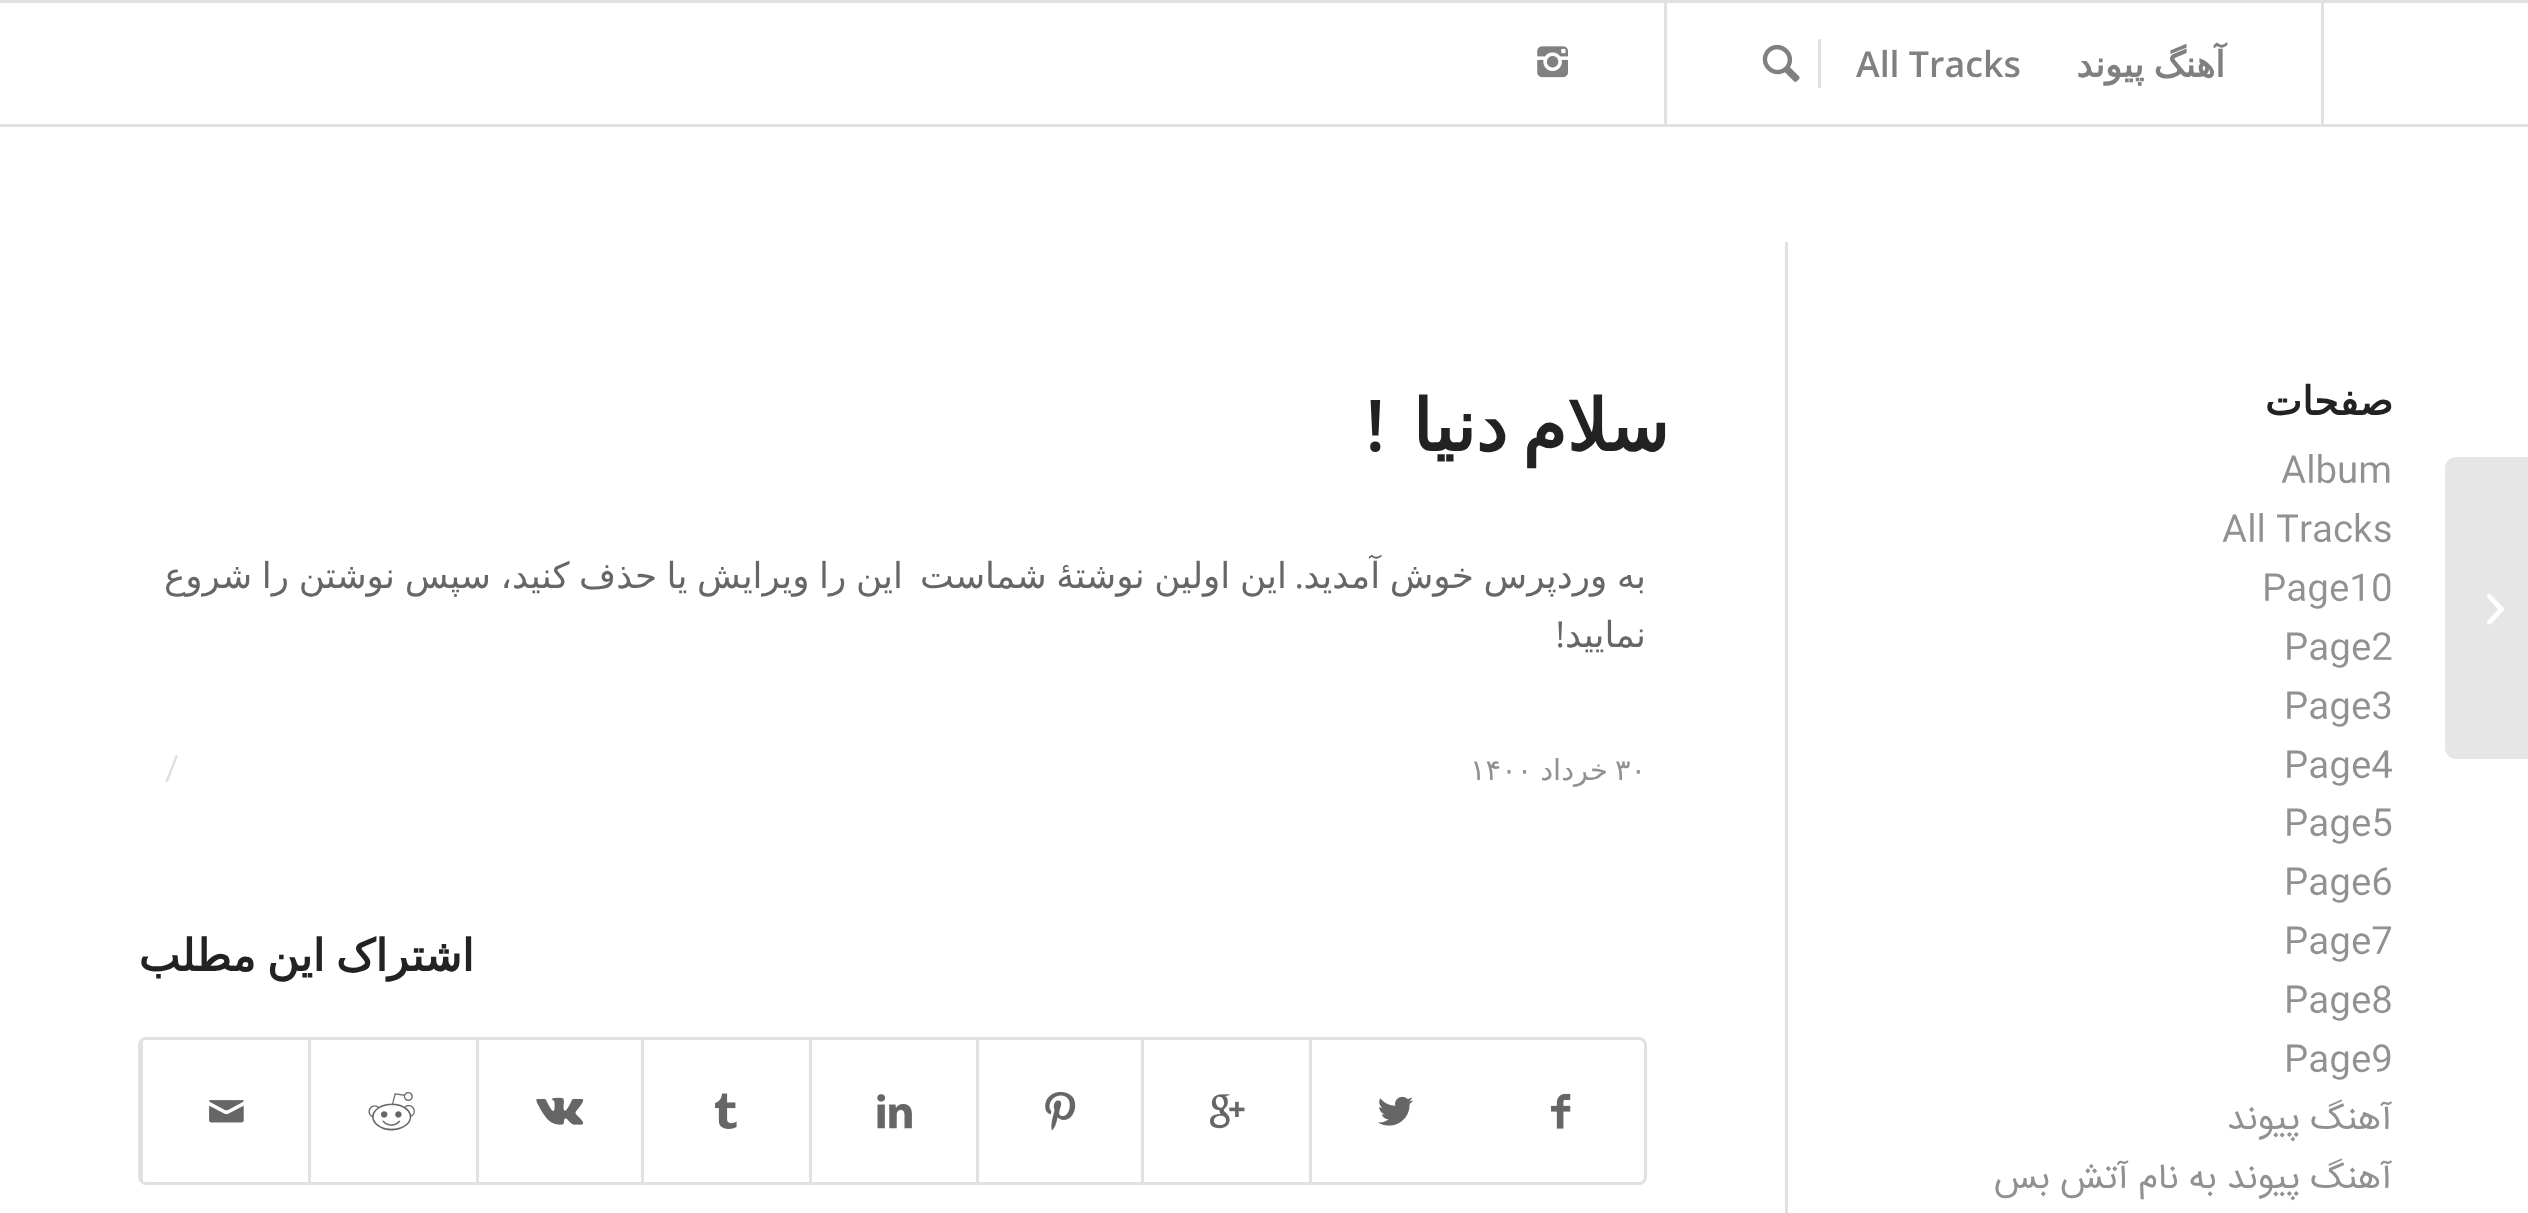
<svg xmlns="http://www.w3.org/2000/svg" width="2528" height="1213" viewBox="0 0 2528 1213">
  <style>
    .t1 { font: bold 35.75px DejaVu Sans; direction: rtl; fill: #808080; }
    .t2 { font: 600 35.75px Open Sans; fill: #808080; }
    .t3 { font: bold 39.5px DejaVu Sans; direction: rtl; fill: #222; }
    .t4 { font: 35.75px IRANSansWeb; fill: #919191; }
    .t5 { font: 35.75px IRANSansWeb; direction: rtl; fill: #919191; }
    .t6 { font: bold 71.5px DejaVu Sans; letter-spacing: 2.75px; direction: rtl; fill: #222; }
    .t7 { font: 600 71.5px Open Sans; letter-spacing: 2.75px; direction: rtl; fill: #222; }
    .t8 { font: 35.75px DejaVu Sans; direction: rtl; fill: #666; }
    .t9 { font: 35.75px Open Sans; direction: rtl; fill: #666; }
    .t10 { font: 29px DejaVu Sans; fill: #919191; }
    .t11 { font: 29px DejaVu Sans; direction: rtl; fill: #919191; }
    .t12 { font: 32px IRANSansWeb; fill: #dedede; }
    .t13 { font: bold 44px DejaVu Sans; direction: rtl; fill: #222; }
  </style>
  <defs>
    <clipPath id="clip1"><rect x="140" y="1040" width="1505" height="143" rx="6"/></clipPath>
  </defs>
  <rect width="100%" height="100%" fill="#fff"/>
  <rect x="0" y="0" width="2528" height="3" fill="#e1e1e1"/>
  <rect x="0" y="124" width="2528" height="3" fill="#e1e1e1"/>
  <rect x="2321" y="3" width="3" height="121" fill="#e1e1e1"/>
  <rect x="1664" y="3" width="3" height="121" fill="#e1e1e1"/>
  <text x="2225" y="77" word-spacing="-2" class="t1">آهنگ پیوند</text>
  <text x="1856" y="77" class="t2">All Tracks</text>
  <rect x="1818" y="39" width="3" height="49" fill="#e1e1e1"/>
  <image x="1762" y="44" width="38" height="38" href="images/1.png"/>
  <image x="1537" y="46" width="31" height="32" href="images/2.png"/>
  <path d="M2456 457H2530V759H2456C2450 759 2445 754 2445 748V468C2445 462 2450 457 2456 457Z" fill="#e6e6e6"/>
  <image x="2487" y="594" width="18" height="31" href="images/3.png"/>
  <text x="2393" y="415" class="t3">صفحات</text>
  <text x="2281" y="481" class="t4">Album</text>
  <text x="2222" y="540" class="t4">All Tracks</text>
  <text x="2262" y="599" class="t4">Page10</text>
  <text x="2284" y="658" class="t4">Page2</text>
  <text x="2284" y="717" class="t4">Page3</text>
  <text x="2284" y="776" class="t4">Page4</text>
  <text x="2284" y="834" class="t4">Page5</text>
  <text x="2284" y="893" class="t4">Page6</text>
  <text x="2284" y="952" class="t4">Page7</text>
  <text x="2284" y="1011" class="t4">Page8</text>
  <text x="2284" y="1070" class="t4">Page9</text>
  <text x="2392" y="1129" class="t5">آهنگ پیوند</text>
  <text x="2392" y="1188" class="t5">آهنگ پیوند به نام آتش بس</text>
  <rect x="1785" y="242" width="3" height="971" fill="#e1e1e1"/>
  <text x="1669" y="451" word-spacing="-8" class="t6">سلام دنیا</text>
  <text x="1388" y="451" class="t7">!</text>
  <text x="1646" y="588" word-spacing="-1.75" class="t8">به وردپرس خوش آمدید</text>
  <text x="1304" y="588" class="t9">.</text>
  <text x="1287" y="588" word-spacing="-1.75" class="t8">این اولین نوشتهٔ شماست</text>
  <text x="903" y="588" word-spacing="-1.75" class="t8">این را ویرایش یا حذف کنید، سپس نوشتن را شروع</text>
  <text x="1646" y="647" class="t8">نمایید</text>
  <text x="1565" y="647" class="t9">!</text>
  <text x="1615" y="780" class="t10">۳۰</text>
  <text x="1608" y="780" class="t11">خرداد</text>
  <text x="1470" y="780" class="t10">۱۴۰۰</text>
  <text x="165" y="778" class="t12">/</text>
  <text x="474" y="971" word-spacing="-3" class="t13">اشتراک این مطلب</text>
  <rect x="139.5" y="1038.5" width="1506" height="145" rx="6.5" fill="none" stroke="#e1e1e1" stroke-width="3"/>
  <image x="1551" y="1093" width="20" height="36" href="images/4.png"/>
  <rect x="1309" y="1040" width="3" height="143" fill="#e1e1e1"/>
  <image x="1378" y="1096" width="35" height="30" href="images/5.png"/>
  <rect x="1141" y="1040" width="3" height="143" fill="#e1e1e1"/>
  <image x="1210" y="1094" width="35" height="35" href="images/6.png"/>
  <rect x="976" y="1040" width="3" height="143" fill="#e1e1e1"/>
  <image x="1045" y="1092" width="31" height="39" href="images/7.png"/>
  <rect x="809" y="1040" width="3" height="143" fill="#e1e1e1"/>
  <image x="877" y="1094" width="35" height="35" href="images/8.png"/>
  <rect x="641" y="1040" width="3" height="143" fill="#e1e1e1"/>
  <image x="715" y="1093" width="22" height="36" href="images/9.png"/>
  <rect x="476" y="1040" width="3" height="143" fill="#e1e1e1"/>
  <image x="536" y="1097" width="48" height="28" href="images/10.png"/>
  <rect x="308" y="1040" width="3" height="143" fill="#e1e1e1"/>
  <image x="368" y="1092" width="47" height="39" href="images/11.png"/>
  <g clip-path="url(#clip1)">
    <rect x="140" y="1040" width="3" height="143" fill="#e1e1e1"/>
  </g>
  <image x="209" y="1100" width="35" height="23" href="images/12.png"/>
</svg>
